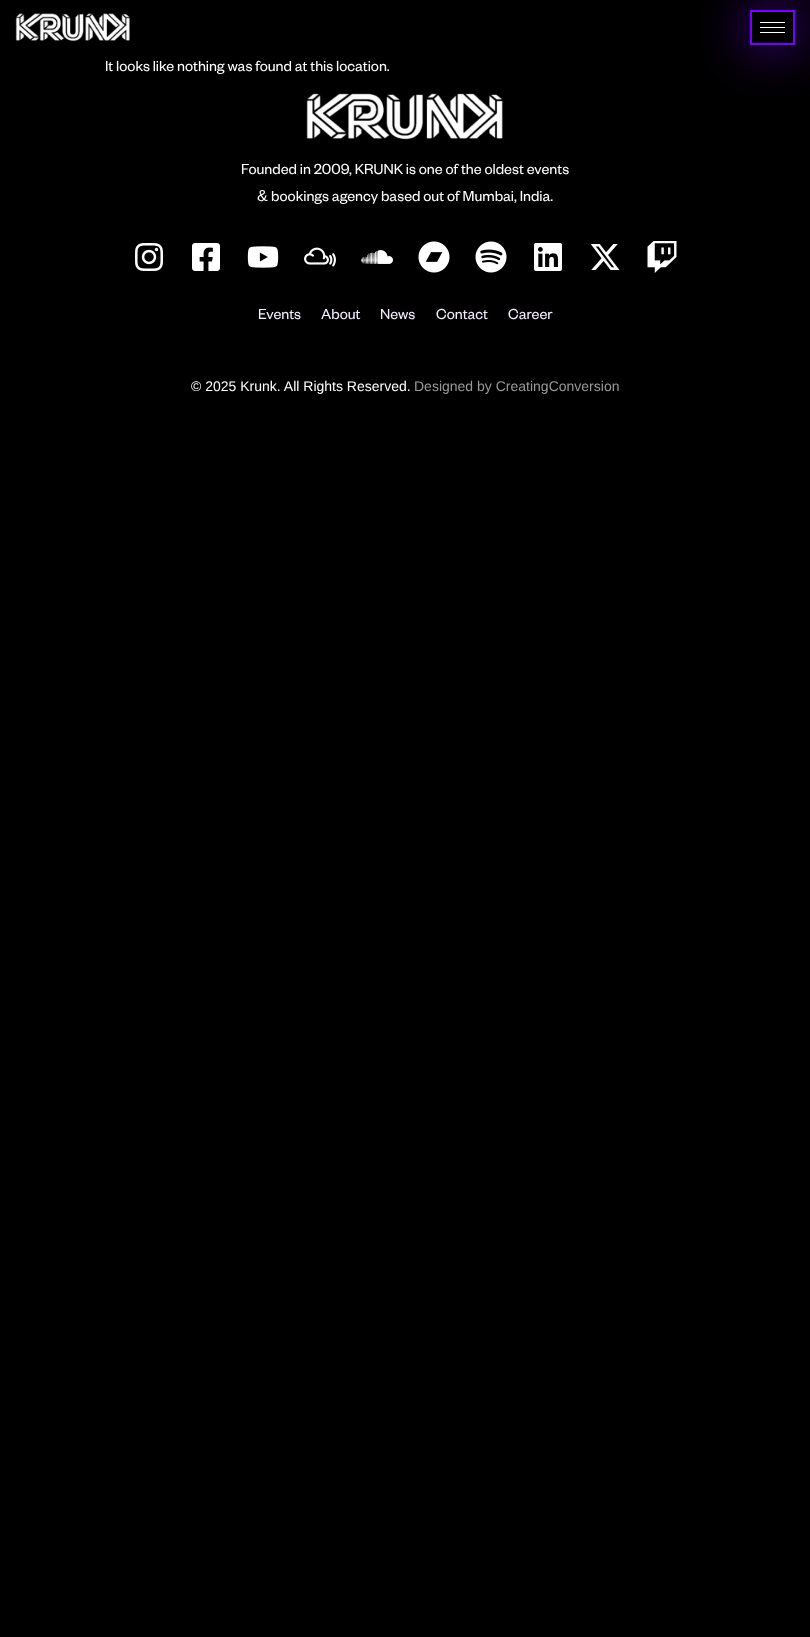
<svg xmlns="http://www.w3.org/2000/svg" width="810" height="1637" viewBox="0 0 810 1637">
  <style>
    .t1 { font: 16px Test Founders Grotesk; fill: #fff; }
    .t2 { font: 16px Liberation Sans; fill: #fff; }
    .t3 { font: 16px Test Founders Grotesk; fill: #f6efff; }
    .t4 { font: 14px Liberation Sans; fill: #fff; }
    .t5 { font: 14px Liberation Sans; fill: #999; }
  </style>
  <defs>
    <clipPath id="clip1"><path d="M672 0H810V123H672ZM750 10H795V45H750Z" clip-rule="evenodd"/></clipPath>
  </defs>
  <rect width="100%" height="100%" fill="#000"/>
  <image x="15" y="13" width="115" height="29" href="images/1.png"/>
  <g clip-path="url(#clip1)">
    <rect x="748" y="8" width="49" height="39" fill="#7600ff99" filter="blur(25px)"/>
  </g>
  <rect x="751" y="11" width="43" height="33" fill="none" stroke="#7600ff" stroke-width="2"/>
  <rect x="760" y="22" width="25" height="1" fill="#fff"/>
  <rect x="760" y="27" width="25" height="1" fill="#fff"/>
  <rect x="760" y="32" width="25" height="1" fill="#fff"/>
  <text x="105" y="71" class="t1">It looks like nothing was found at this location.</text>
  <image x="306" y="93" width="197" height="47" href="images/2.png"/>
  <text x="241" y="174" class="t1">Founded in 2009, KRUNK is one of the oldest events</text>
  <text x="257" y="201" class="t2">&amp;</text>
  <text x="271" y="201" class="t1">bookings agency based out of Mumbai, India.</text>
  <image x="135" y="243" width="28" height="28" href="images/3.png"/>
  <image x="192" y="243" width="28" height="28" href="images/4.png"/>
  <image x="247" y="246" width="32" height="22" href="images/5.png"/>
  <image x="304" y="247" width="32" height="20" href="images/6.png"/>
  <image x="361" y="250" width="32" height="14" href="images/7.png"/>
  <image x="418" y="241" width="32" height="32" href="images/8.png"/>
  <image x="475" y="241" width="32" height="32" href="images/9.png"/>
  <image x="534" y="243" width="28" height="28" href="images/10.png"/>
  <image x="590" y="244" width="30" height="26" href="images/11.png"/>
  <image x="647" y="241" width="30" height="32" href="images/12.png"/>
  <text x="258" y="319" class="t3">Events</text>
  <text x="321" y="319" class="t3">About</text>
  <text x="380" y="319" class="t3">News</text>
  <text x="436" y="319" class="t3">Contact</text>
  <text x="508" y="319" class="t3">Career</text>
  <text x="191" y="391" class="t4">© 2025 Krunk. All Rights Reserved.</text>
  <text x="414" y="391" class="t5">Designed by CreatingConversion</text>
</svg>
